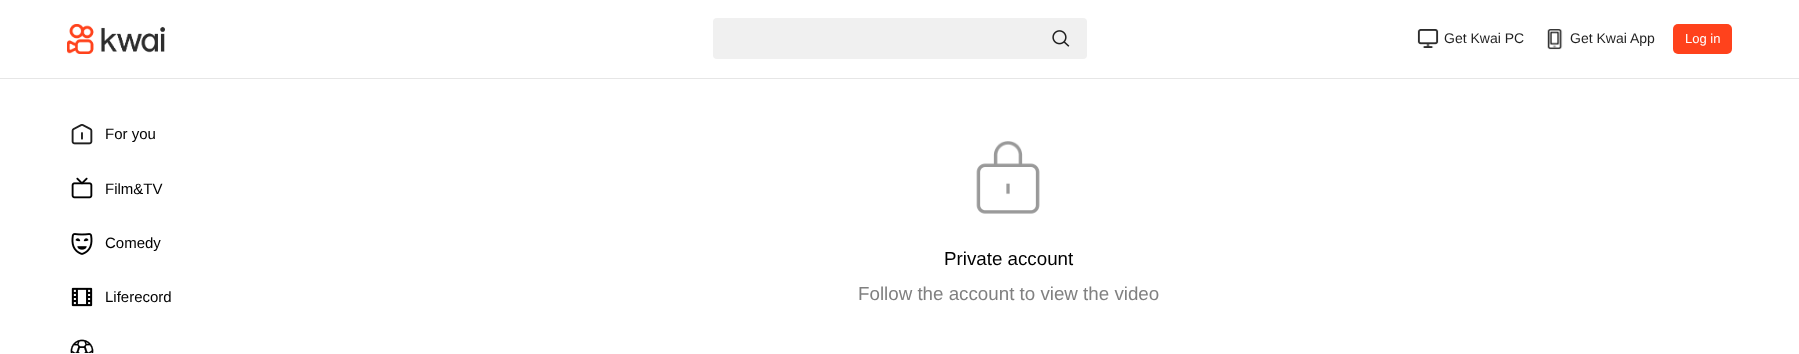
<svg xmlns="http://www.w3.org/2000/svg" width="1799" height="354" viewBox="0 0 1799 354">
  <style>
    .t1 { font: 14px Liberation Sans; fill: #1f1f1f; }
    .t2 { font: 13px Liberation Sans; fill: #fff; }
    .t3 { font: 15px Liberation Sans; fill: #000; }
    .t4 { font: 18.75px Liberation Sans; fill: #000; }
    .t5 { font: 18.75px Liberation Sans; fill: #808080; }
  </style>
  <rect width="100%" height="100%" fill="#fff"/>
  <rect x="0" y="78" width="1799" height="1" fill="#e6e6e6"/>
  <image x="67" y="24" width="98" height="30" href="images/1.png"/>
  <rect x="713" y="18" width="374" height="41" rx="4" fill="#f0f0f0"/>
  <image x="1052" y="30" width="18" height="17" href="images/2.png"/>
  <image x="1417" y="29" width="22" height="19" href="images/3.png"/>
  <text x="1444" y="43" class="t1">Get Kwai PC</text>
  <image x="1547" y="29" width="16" height="21" href="images/4.png"/>
  <text x="1570" y="43" class="t1">Get Kwai App</text>
  <rect x="1673" y="24" width="59" height="30" rx="5" fill="#ff421c"/>
  <text x="1685" y="43" class="t2">Log in</text>
  <image x="71" y="124" width="22" height="21" href="images/5.png"/>
  <text x="105" y="139" class="t3">For you</text>
  <image x="71" y="177" width="22" height="22" href="images/6.png"/>
  <text x="105" y="194" class="t3">Film&amp;TV</text>
  <image x="71" y="233" width="22" height="22" href="images/7.png"/>
  <text x="105" y="248" class="t3">Comedy</text>
  <image x="71" y="287" width="22" height="20" href="images/8.png"/>
  <text x="105" y="302" class="t3">Liferecord</text>
  <image x="70" y="339" width="24" height="14" href="images/9.png"/>
  <image x="976" y="141" width="64" height="73" href="images/10.png"/>
  <text x="944" y="265" class="t4">Private account</text>
  <text x="858" y="300" class="t5">Follow the account to view the video</text>
</svg>
